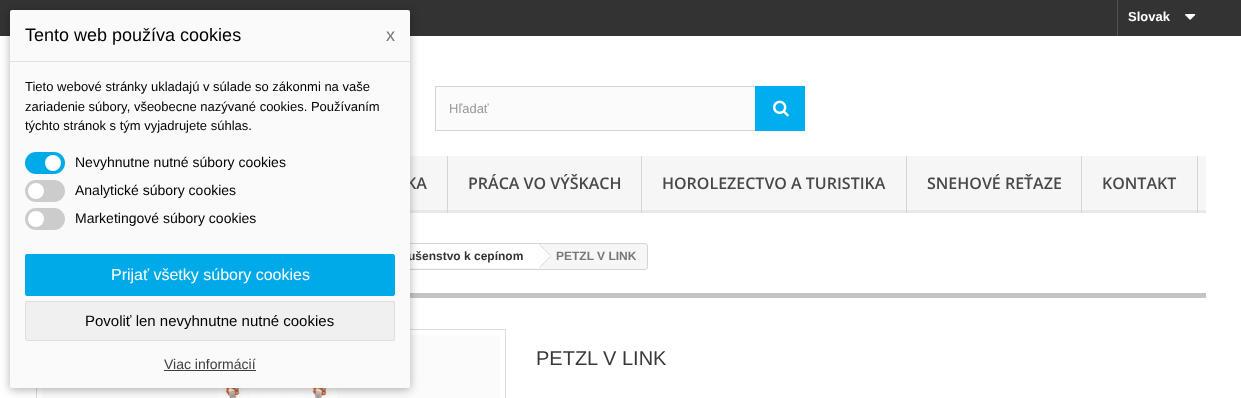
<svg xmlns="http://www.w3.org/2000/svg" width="1241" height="398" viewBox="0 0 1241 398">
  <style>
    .t1 { font: 600 16px Open Sans; fill: #484848; }
    .t2 { font: bold 12px Liberation Sans; fill: #333; }
    .t3 { font: 18px Liberation Sans; fill: #000; }
    .t4 { font: 18px Liberation Sans; fill: #777; }
    .t5 { font: 13px Liberation Sans; fill: #000; }
    .t6 { font: 14px Liberation Sans; fill: #000; }
    .t7 { font: 16px Liberation Sans; fill: #fff; }
    .t8 { font: 15px Liberation Sans; fill: #000; }
    .t9 { font: 14px Liberation Sans; fill: #3f3f3f; }
    .t10 { font: bold 13px Liberation Sans; fill: #fff; }
    .t11 { font: 13px Liberation Sans; fill: #999; }
    .t12 { font: bold 12px Liberation Sans; fill: #777; }
    .t13 { font: 20px Liberation Sans; fill: #3a3939; }
  </style>
  <rect width="100%" height="100%" fill="#fff"/>
  <rect x="0" y="0" width="1241" height="36" fill="#333"/>
  <rect x="410" y="156" width="796" height="54" fill="#f6f6f6"/>
  <rect x="410" y="210" width="796" height="3" fill="#e9e9e9"/>
  <rect x="36.5" y="243.5" width="611" height="26" rx="2.5" fill="#f6f6f6" stroke="#d6d4d4"/>
  <rect x="410" y="244" width="128" height="24" fill="#fff"/>
  <rect x="410" y="293" width="796" height="5" fill="#c4c4c4"/>
  <rect x="36.5" y="329.5" width="469" height="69" fill="none" stroke="#dbdbdb"/>
  <rect x="42" y="335" width="458" height="63" fill="#fbfbfb"/>
  <image x="218" y="388" width="119" height="10" href="images/3.png"/>
  <rect x="10" y="12" width="400" height="378" rx="2" fill="#0000004d" filter="blur(5px)"/>
  <text x="406" y="189" class="t1">KA</text>
  <text x="408" y="260" class="t2">ušenstvo k cepínom</text>
  <rect x="10" y="10" width="400" height="378" rx="2" fill="#fafafa"/>
  <rect x="10" y="61" width="400" height="1" fill="#dee2e6"/>
  <text x="25" y="41" class="t3">Tento web používa cookies</text>
  <text x="386" y="41" class="t4">x</text>
  <text x="25" y="91" class="t5">Tieto webové stránky ukladajú v súlade so zákonmi na vaše</text>
  <text x="25" y="111" class="t5">zariadenie súbory, všeobecne nazývané cookies. Používaním</text>
  <text x="25" y="130" class="t5">týchto stránok s tým vyjadrujete súhlas.</text>
  <rect x="25" y="152" width="40" height="22" rx="11" fill="#00aae9"/>
  <circle cx="53" cy="163" r="8" fill="#fff"/>
  <text x="75" y="167" class="t6">Nevyhnutne nutné súbory cookies</text>
  <rect x="25" y="180" width="40" height="22" rx="11" fill="#ccc"/>
  <circle cx="36" cy="191" r="8" fill="#fff"/>
  <text x="75" y="195" class="t6">Analytické súbory cookies</text>
  <rect x="25" y="208" width="40" height="22" rx="11" fill="#ccc"/>
  <circle cx="36" cy="219" r="8" fill="#fff"/>
  <text x="75" y="223" class="t6">Marketingové súbory cookies</text>
  <rect x="25.5" y="254.5" width="369" height="41" rx="1.5" fill="#00aae9" stroke="#00aae9"/>
  <text x="111" y="280" class="t7">Prijať všetky súbory cookies</text>
  <rect x="25.5" y="301.5" width="369" height="39" rx="1.5" fill="#f0f0f0" stroke="#ddd"/>
  <text x="85" y="326" class="t8">Povoliť len nevyhnutne nutné cookies</text>
  <text x="164" y="369" class="t9">Viac informácií</text>
  <rect x="164" y="370" width="92" height="1" fill="#3f3f3f"/>
  <rect x="1117" y="0" width="1" height="36" fill="#515151"/>
  <text x="1128" y="21" class="t10">Slovak</text>
  <image x="1185" y="14" width="11" height="6" href="images/1.png"/>
  <rect x="436" y="87" width="319" height="43" fill="#fbfbfb"/>
  <rect x="435.5" y="86.5" width="369" height="44" fill="none" stroke="#d6d4d4"/>
  <text x="449" y="113" class="t11">Hľadať</text>
  <rect x="755" y="86" width="50" height="45" fill="#00aeef"/>
  <image x="773" y="100" width="16" height="17" href="images/2.png"/>
  <rect x="447" y="156" width="1" height="57" fill="#d6d4d4"/>
  <rect x="641" y="156" width="1" height="57" fill="#d6d4d4"/>
  <text x="468" y="189" class="t1">PRÁCA VO VÝŠKACH</text>
  <rect x="906" y="156" width="1" height="57" fill="#d6d4d4"/>
  <text x="662" y="189" class="t1">HOROLEZECTVO A TURISTIKA</text>
  <rect x="1081" y="156" width="1" height="57" fill="#d6d4d4"/>
  <text x="927" y="189" class="t1">SNEHOVÉ REŤAZE</text>
  <rect x="1197" y="156" width="1" height="57" fill="#d6d4d4"/>
  <text x="1102" y="189" class="t1">KONTAKT</text>
  <path d="M540.5 244.5L550.5 254.5C551 255.5 551 256.5 550.5 257.5L540.5 267.5C539.5 268 538.5 268 537.5 267.5L527.5 257.5C527 256.5 527 255.5 527.5 254.5L537.5 244.5C538.5 244 539.5 244 540.5 244.5Z" fill="#fff"/>
  <path d="M539.5 244L551 255.5L550.5 256L539 244.5ZM550.5 256L551 256.5L539.5 268L539 267.5Z" fill="#d6d4d4"/>
  <text x="556" y="260" class="t12">PETZL V LINK</text>
  <text x="536" y="365" class="t13">PETZL V LINK</text>
</svg>
